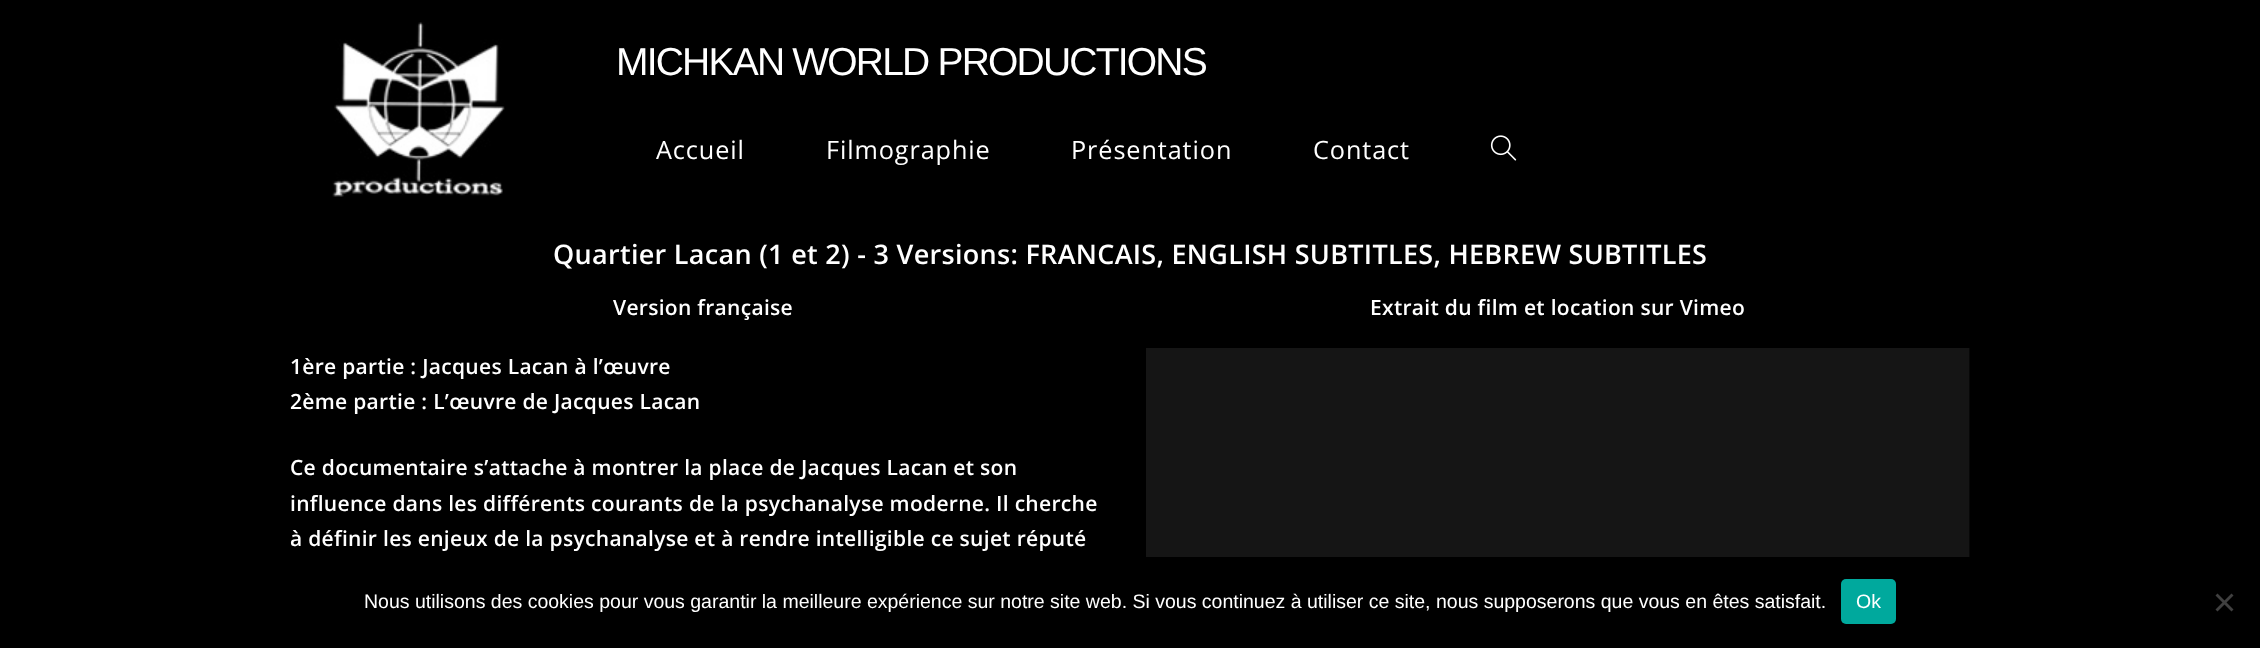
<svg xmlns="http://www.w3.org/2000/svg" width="2260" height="648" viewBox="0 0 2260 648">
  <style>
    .t1 { font: 39px Liberation Sans; letter-spacing: -1.8px; fill: #fff; }
    .t2 { font: 25.25px Open Sans; letter-spacing: 0.9px; fill: #fff; }
    .t3 { font: 600 27px Open Sans; letter-spacing: 0.3px; fill: #fff; }
    .t4 { font: 600 21px Open Sans; letter-spacing: 0.3px; fill: #fff; }
    .t5 { font: 19.5px Liberation Sans; fill: #fff; }
  </style>
  <rect width="100%" height="100%" fill="#000"/>
  <image x="332" y="22" width="173" height="175" href="images/1.png"/>
  <text x="616" y="75" class="t1">MICHKAN WORLD PRODUCTIONS</text>
  <text x="656" y="159" class="t2">Accueil</text>
  <text x="826" y="159" class="t2">Filmographie</text>
  <text x="1071" y="159" class="t2">Présentation</text>
  <text x="1313" y="159" class="t2">Contact</text>
  <image x="1490" y="135" width="27" height="26" href="images/2.png"/>
  <text x="553" y="264" class="t3">Quartier Lacan (1 et 2) - 3 Versions: FRANCAIS, ENGLISH SUBTITLES, HEBREW SUBTITLES</text>
  <text x="613" y="315" class="t4">Version française</text>
  <text x="290" y="374" class="t4">1ère partie : Jacques Lacan à l’œuvre</text>
  <text x="290" y="409" class="t4">2ème partie : L’œuvre de Jacques Lacan</text>
  <text x="290" y="475" class="t4">Ce documentaire s’attache à montrer la place de Jacques Lacan et son</text>
  <text x="290" y="511" class="t4">influence dans les différents courants de la psychanalyse moderne. Il cherche</text>
  <text x="290" y="546" class="t4">à définir les enjeux de la psychanalyse et à rendre intelligible ce sujet réputé</text>
  <text x="1370" y="315" class="t4">Extrait du film et location sur Vimeo</text>
  <image x="1146" y="348" width="824" height="209" href="images/3.png"/>
  <text x="364" y="608" class="t5">Nous utilisons des cookies pour vous garantir la meilleure expérience sur notre site web. Si vous continuez à utiliser ce site, nous supposerons que vous en êtes satisfait.</text>
  <rect x="1841" y="579" width="55" height="45" rx="5" fill="#00a99d"/>
  <text x="1856" y="608" class="t5">Ok</text>
  <path d="M2231.5 593.5L2233.5 595.5L2217.5 611.5L2215.5 609.5Z" fill="#404040"/>
  <path d="M2215.5 595.5L2217.5 593.5L2233.5 609.5L2231.5 611.5Z" fill="#404040"/>
</svg>
